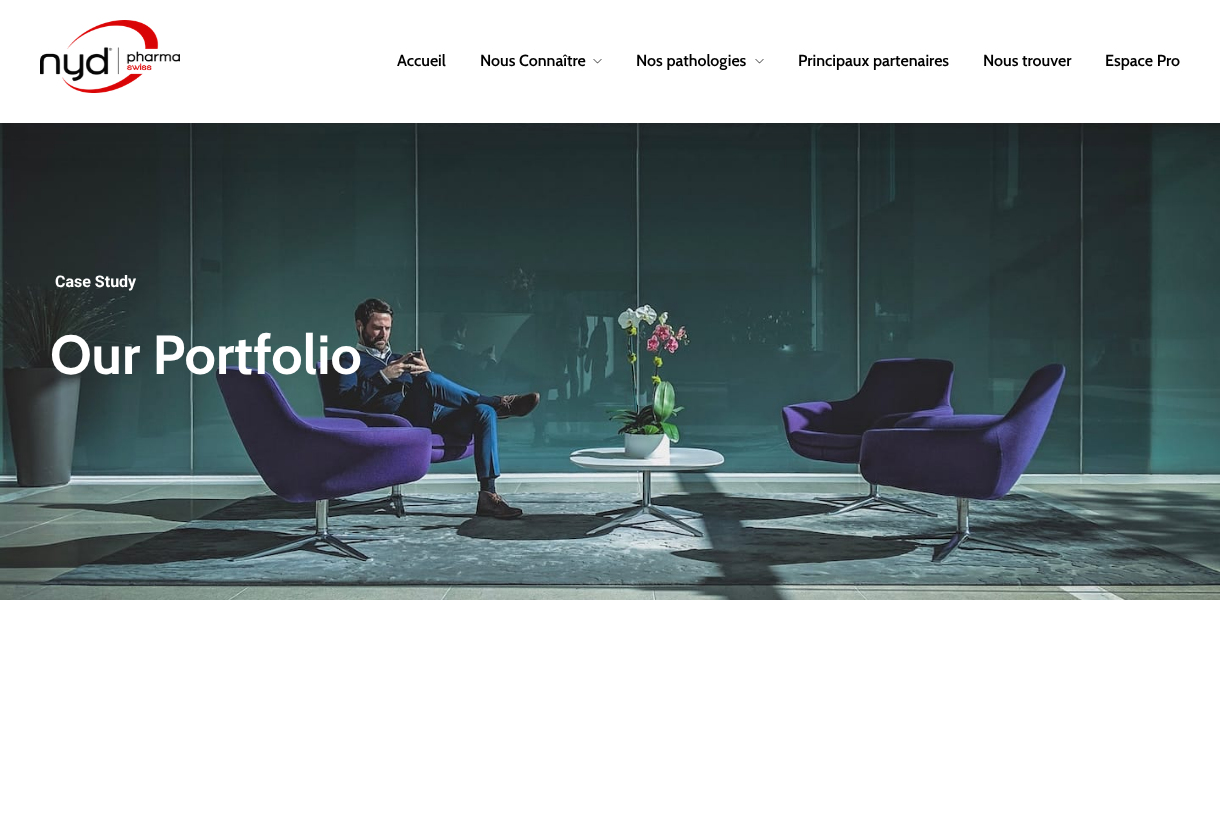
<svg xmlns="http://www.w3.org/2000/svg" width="1220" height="830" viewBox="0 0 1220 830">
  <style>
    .t1 { font: 600 16px Cabin; fill: #000; }
    .t2 { font: bold 16px Roboto; fill: #fff; }
    .t3 { font: bold 55px Cabin; fill: #fff; }
  </style>
  <rect width="100%" height="100%" fill="#fff"/>
  <image x="0" y="123" width="1220" height="477" href="images/3.png"/>
  <rect x="0" y="10" width="1220" height="123" fill="#2f2f2f1a" filter="blur(20px)"/>
  <rect x="0" y="0" width="1220" height="123" fill="#fff"/>
  <image x="40" y="20" width="140" height="73" href="images/1.png"/>
  <text x="397" y="66" class="t1">Accueil</text>
  <text x="480" y="66" class="t1">Nous Connaître</text>
  <image x="593" y="59" width="9" height="5" href="images/2.png"/>
  <text x="636" y="66" class="t1">Nos pathologies</text>
  <image x="755" y="59" width="9" height="5" href="images/2.png"/>
  <text x="798" y="66" class="t1">Principaux partenaires</text>
  <text x="983" y="66" class="t1">Nous trouver</text>
  <text x="1105" y="66" class="t1">Espace Pro</text>
  <text x="55" y="287" class="t2">Case Study</text>
  <text x="50" y="374" class="t3">Our Portfolio</text>
</svg>
